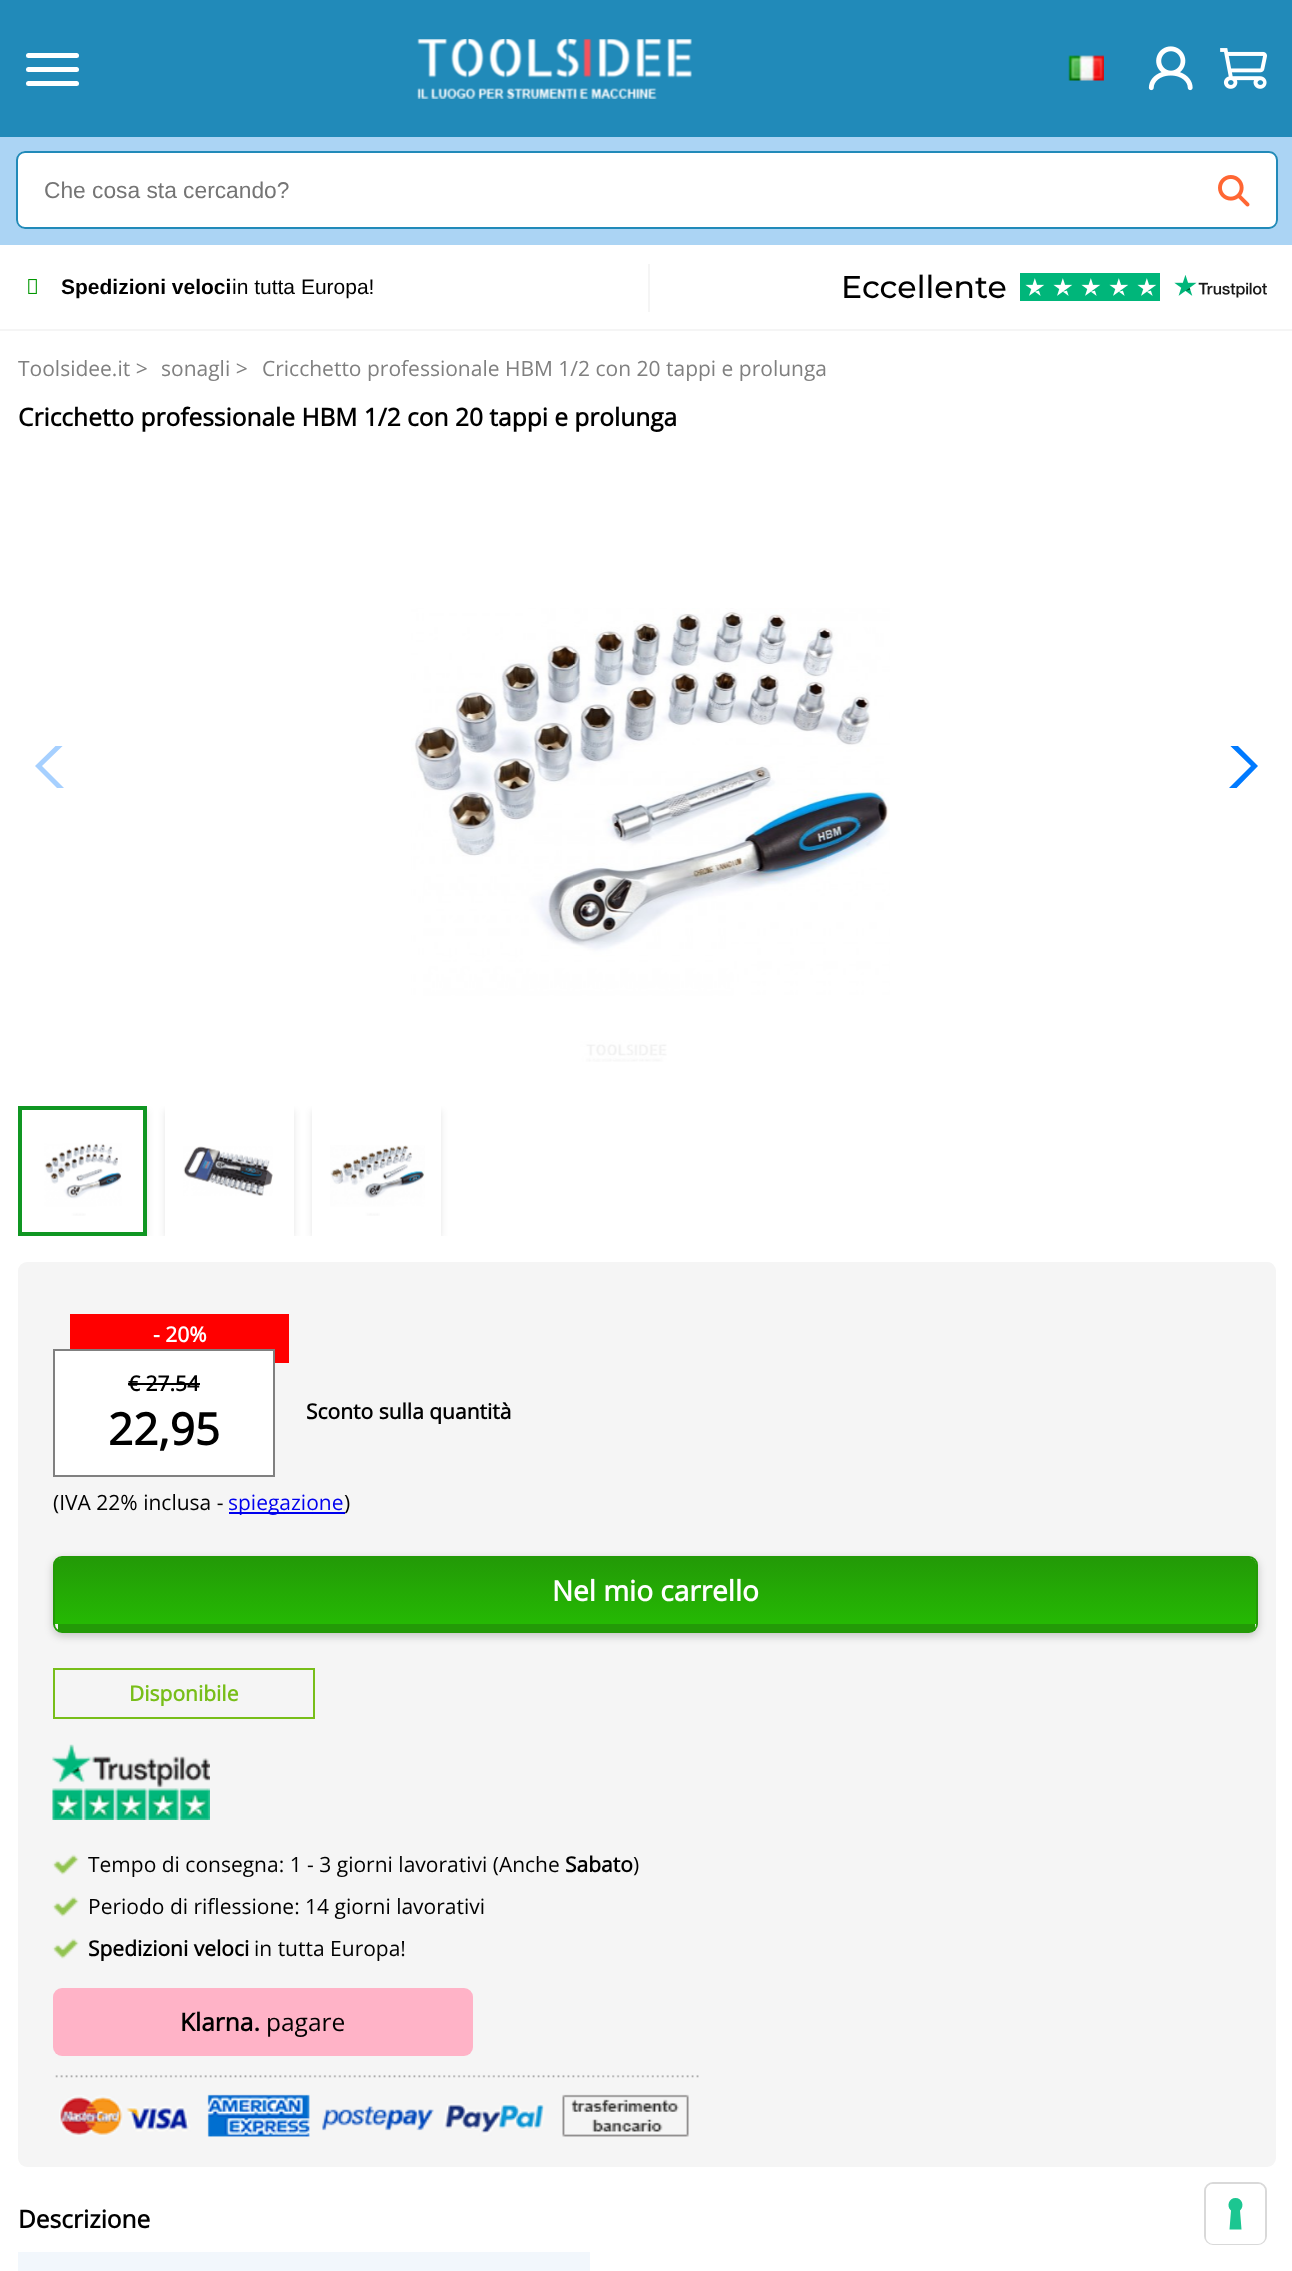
<svg xmlns="http://www.w3.org/2000/svg" width="1292" height="2271" viewBox="0 0 1292 2271">
  <style>
    .t1 { font: 22.75px Liberation Sans; fill: #757575; }
    .t2 { font: bold 21px Liberation Sans; fill: #000; }
    .t3 { font: 21px Liberation Sans; fill: #000; }
    .t4 { font: 500 31.5px Montserrat; fill: #000; }
    .t5 { font: 21px Open Sans; fill: #808080; }
    .t6 { font: bold 24.5px Open Sans; fill: #000; }
    .t7 { font: bold 21px Open Sans; fill: #fff; }
    .t8 { font: bold 21px Open Sans; fill: #000; }
    .t9 { font: bold 44px Open Sans; fill: #000; }
    .t10 { font: 21px Open Sans; fill: #000; }
    .t11 { font: 21px Open Sans; fill: #00e; }
    .t12 { font: bold 28px Open Sans; fill: #fff; }
    .t13 { font: bold 21px Open Sans; fill: #78be19; }
    .t14 { font: 24.5px Open Sans; fill: #000; }
  </style>
  <defs>
    <clipPath id="clip1"><rect x="35" y="746" width="47" height="42"/></clipPath>
    <clipPath id="clip2"><rect x="1211" y="746" width="47" height="42"/></clipPath>
    <clipPath id="clip3"><rect x="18" y="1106" width="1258" height="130"/></clipPath>
    <clipPath id="clip4"><path d="M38 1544H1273V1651H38ZM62 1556H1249C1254 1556 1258 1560 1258 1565V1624C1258 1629 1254 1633 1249 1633H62C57 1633 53 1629 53 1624V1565C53 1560 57 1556 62 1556Z" clip-rule="evenodd"/></clipPath>
    <linearGradient id="g1" gradientUnits="userSpaceOnUse" x1="655" y1="1624" x2="655" y2="1558"><stop offset="0" stop-color="#25b903"/><stop offset="1" stop-color="#239a07"/></linearGradient>
  </defs>
  <rect width="100%" height="100%" fill="#fff"/>
  <rect x="0" y="0" width="1292" height="137" fill="#218ab9"/>
  <rect x="26" y="53" width="53" height="5" rx="2.5" fill="#fff"/>
  <rect x="26" y="67" width="53" height="5" rx="2.5" fill="#fff"/>
  <rect x="26" y="81" width="53" height="5" rx="2.5" fill="#fff"/>
  <image x="417" y="39" width="275" height="60" href="images/1.png"/>
  <image x="1068" y="55" width="36" height="26" href="images/2.png"/>
  <image x="1148" y="46" width="45" height="45" href="images/3.png"/>
  <image x="1220" y="48" width="47" height="41" href="images/4.png"/>
  <rect x="0" y="137" width="1292" height="108" fill="#abd4f4"/>
  <rect x="16" y="151" width="1262" height="78" rx="9" fill="#fff"/>
  <image x="1218" y="175" width="32" height="32" href="images/5.png"/>
  <rect x="17" y="152" width="1260" height="76" rx="8" fill="none" stroke="#218ab9" stroke-width="2"/>
  <text x="44" y="198" class="t1">Che cosa sta cercando?</text>
  <rect x="0" y="329" width="1292" height="2" fill="#f5f5f5"/>
  <rect x="648" y="264" width="2" height="48" fill="#f5f5f5"/>
  <image x="28" y="279" width="9" height="15" href="images/6.png"/>
  <text x="61" y="294" class="t2">Spedizioni veloci</text>
  <text x="232" y="294" class="t3">in tutta Europa!</text>
  <text x="841" y="298" class="t4">Eccellente</text>
  <rect x="1020" y="273" width="140" height="28" fill="#00b67a"/>
  <image x="1025" y="278" width="20" height="18" href="images/7.png"/>
  <image x="1053" y="278" width="20" height="18" href="images/7.png"/>
  <image x="1081" y="278" width="20" height="18" href="images/7.png"/>
  <image x="1109" y="278" width="20" height="18" href="images/7.png"/>
  <image x="1137" y="278" width="20" height="18" href="images/7.png"/>
  <image x="1174" y="275" width="93" height="23" href="images/8.png"/>
  <text x="18" y="376" class="t5">Toolsidee.it &gt;</text>
  <text x="161" y="376" class="t5">sonagli &gt;</text>
  <text x="262" y="376" class="t5">Cricchetto professionale HBM 1/2 con 20 tappi e prolunga</text>
  <text x="18" y="426" class="t6">Cricchetto professionale HBM 1/2 con 20 tappi e prolunga</text>
  <g clip-path="url(#clip1)">
    <path d="M35 766L74 728L77 732L42 766L77 801L74 805Z" fill="#a6d0ff"/>
  </g>
  <image x="411" y="608" width="479" height="454" href="images/9.png"/>
  <g clip-path="url(#clip2)">
    <path d="M1258 766L1220 805L1216 801L1251 766L1216 732L1220 728Z" fill="#007aff"/>
  </g>
  <g clip-path="url(#clip3)">
    <rect x="18" y="1110" width="129" height="129" fill="#0000001a" filter="blur(3.5px)"/>
  </g>
  <rect x="20" y="1108" width="125" height="126" fill="#fff" stroke="#109622" stroke-width="4"/>
  <image x="44" y="1143" width="78" height="73" href="images/10.png"/>
  <g clip-path="url(#clip3)">
    <rect x="165" y="1110" width="129" height="129" fill="#0000001a" filter="blur(3.5px)"/>
  </g>
  <rect x="165" y="1106" width="129" height="130" fill="#fff"/>
  <image x="183" y="1146" width="90" height="50" href="images/11.png"/>
  <g clip-path="url(#clip3)">
    <rect x="312" y="1110" width="129" height="129" fill="#0000001a" filter="blur(3.5px)"/>
  </g>
  <rect x="312" y="1106" width="129" height="130" fill="#fff"/>
  <image x="330" y="1145" width="95" height="71" href="images/12.png"/>
  <rect x="18" y="1262" width="1258" height="905" rx="9" fill="#f5f5f5"/>
  <rect x="70" y="1314" width="219" height="49" fill="#f00"/>
  <text x="153" y="1342" class="t7">- 20%</text>
  <rect x="54" y="1350" width="220" height="126" fill="#fff" stroke="#808080" stroke-width="2"/>
  <text x="128" y="1391" class="t8">€ 27.54</text>
  <rect x="128" y="1383" width="72" height="2" fill="#000"/>
  <text x="108" y="1445" class="t9">22,95</text>
  <text x="53" y="1510" class="t10">(IVA 22% inclusa -</text>
  <rect x="229" y="1512" width="116" height="2" fill="#00e"/>
  <text x="228" y="1510" class="t11">spiegazione</text>
  <text x="344" y="1510" class="t10">)</text>
  <text x="306" y="1419" class="t8">Sconto sulla quantità</text>
  <g clip-path="url(#clip4)">
    <rect x="53" y="1559" width="1205" height="77" rx="9" fill="#00000033" filter="blur(4.5px)"/>
  </g>
  <path d="M61 1558H1250C1253 1558 1256 1561 1256 1564V1624H54V1564C54 1561 57 1558 61 1558Z" fill="url(#g1)"/>
  <rect x="54" y="1557" width="1203" height="75" rx="8" fill="none" stroke="#239a07" stroke-width="2"/>
  <rect x="58" y="1624" width="1197" height="7" fill="#239a07"/>
  <text x="552" y="1601" class="t12">Nel mio carrello</text>
  <rect x="54" y="1669" width="260" height="49" fill="none" stroke="#78be19" stroke-width="2"/>
  <text x="129" y="1701" class="t13">Disponibile</text>
  <image x="52" y="1744" width="158" height="76" href="images/13.png"/>
  <image x="52" y="1854" width="27" height="21" href="images/14.png"/>
  <text x="88" y="1872" class="t10">Tempo di consegna: 1 - 3 giorni lavorativi (Anche</text>
  <text x="565" y="1872" class="t8">Sabato</text>
  <text x="633" y="1872" class="t10">)</text>
  <image x="52" y="1896" width="27" height="21" href="images/14.png"/>
  <text x="88" y="1914" class="t10">Periodo di riflessione: 14 giorni lavorativi</text>
  <image x="52" y="1938" width="27" height="21" href="images/14.png"/>
  <text x="88" y="1956" class="t8">Spedizioni veloci</text>
  <text x="254" y="1956" class="t10">in tutta Europa!</text>
  <rect x="53" y="1988" width="420" height="68" rx="9" fill="#ffb3c7"/>
  <text x="180" y="2031" class="t6">Klarna.</text>
  <text x="266" y="2031" class="t14">pagare</text>
  <image x="55" y="2075" width="644" height="62" href="images/15.png"/>
  <text x="18" y="2228" class="t6">Descrizione</text>
  <rect x="18" y="2252" width="572" height="19" fill="#f2f7fc"/>
  <rect x="1205" y="2183" width="61" height="61" rx="8" fill="none" stroke="#d9d9d9" stroke-width="2"/>
  <rect x="1206" y="2184" width="59" height="60" rx="7" fill="#fff"/>
  <path d="M1235.5 2198C1242 2198 1245 2206 1240 2210.5L1241.5 2229.5H1229.5L1231 2210.5C1226 2206 1229 2198 1235.5 2198Z" fill="#1cc691" fill-rule="evenodd"/>
</svg>
